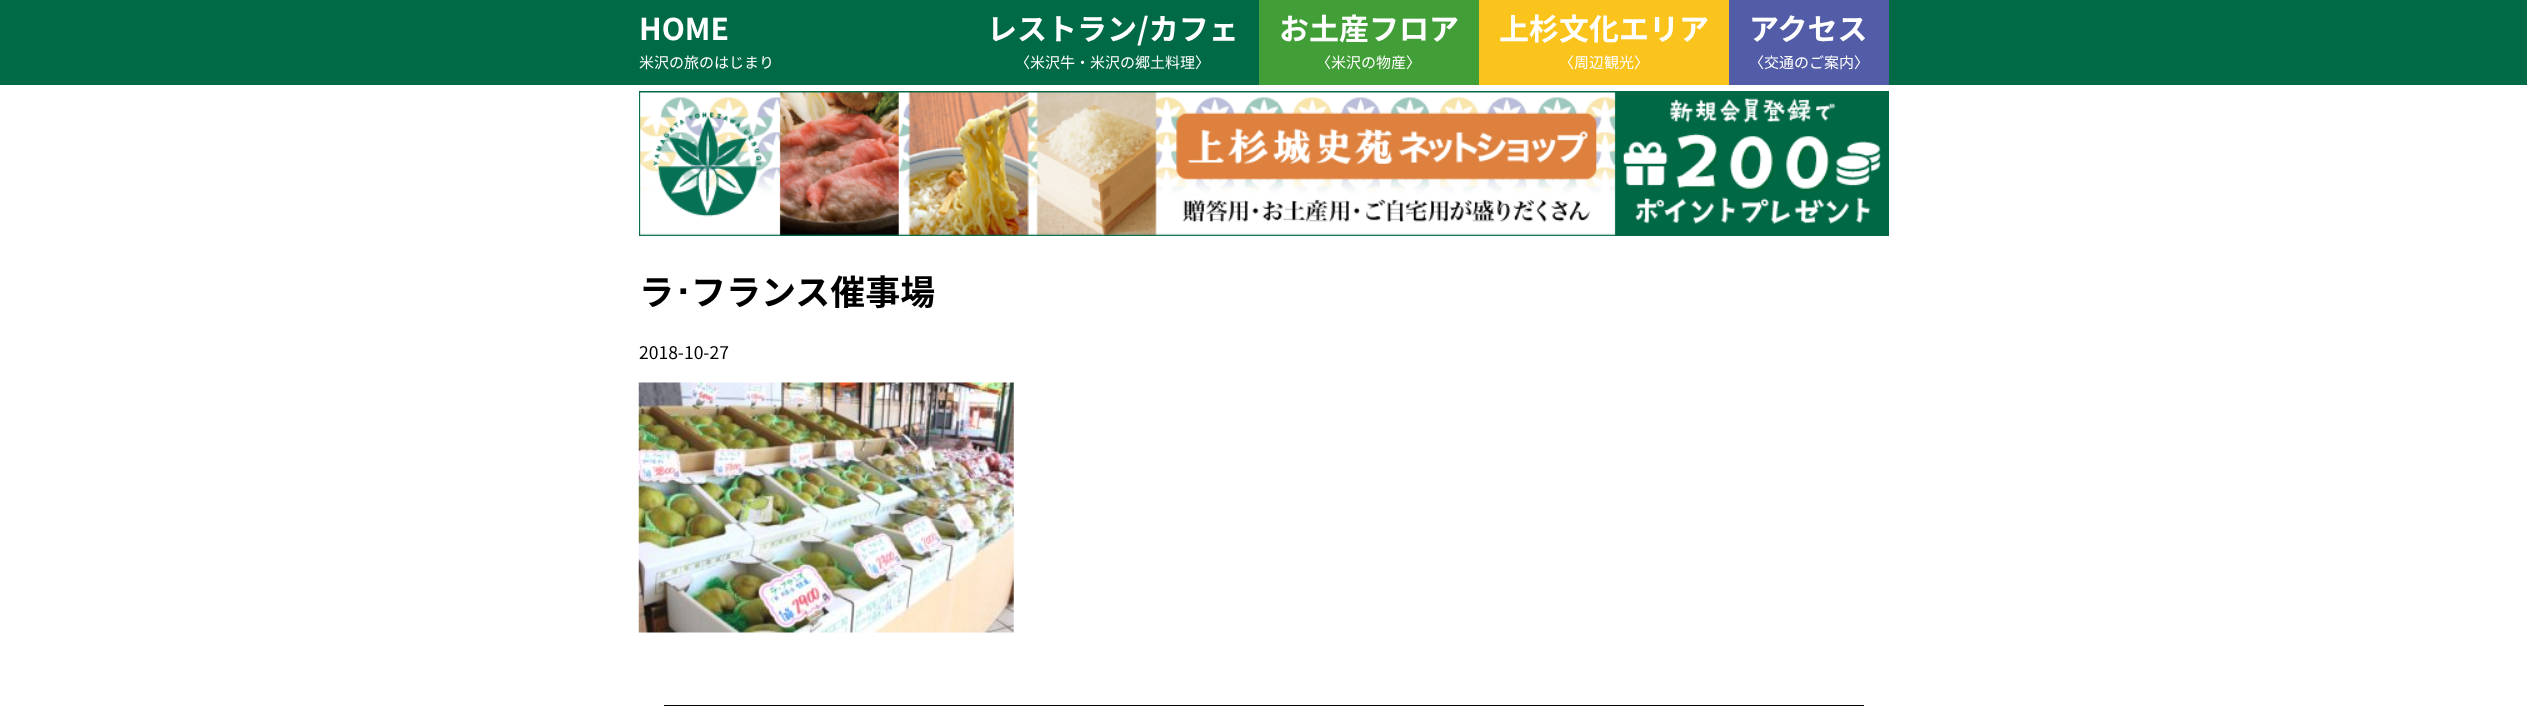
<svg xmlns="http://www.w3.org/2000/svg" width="2527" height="710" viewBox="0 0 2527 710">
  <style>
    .t1 { font: bold 30px Noto Sans JP; fill: #fff; }
    .t2 { font: 15px Noto Sans JP; fill: #fff; }
    .t3 { font: bold 35px Noto Sans JP; fill: #000; }
    .t4 { font: bold 35px IPAGothic; fill: #000; }
    .t5 { font: 17.5px Noto Sans JP; fill: #000; }
  </style>
  <rect width="100%" height="100%" fill="#fff"/>
  <rect x="0" y="0" width="2527" height="85" fill="#006a46"/>
  <text x="639" y="40" class="t1">HOME</text>
  <text x="639" y="68" class="t2">米沢の旅のはじまり</text>
  <text x="987" y="40" class="t1">レストラン/カフェ</text>
  <text x="1015" y="68" class="t2">〈米沢牛・米沢の郷土料理〉</text>
  <rect x="1259" y="0" width="220" height="85" fill="#429f38"/>
  <text x="1279" y="40" class="t1">お土産フロア</text>
  <text x="1316" y="68" class="t2">〈米沢の物産〉</text>
  <rect x="1479" y="0" width="250" height="85" fill="#fac41d"/>
  <text x="1499" y="40" class="t1">上杉文化エリア</text>
  <text x="1559" y="68" class="t2">〈周辺観光〉</text>
  <rect x="1729" y="0" width="160" height="85" fill="#525ca7"/>
  <text x="1749" y="40" class="t1">アクセス</text>
  <text x="1749" y="68" class="t2">〈交通のご案内〉</text>
  <image x="639" y="91" width="1250" height="145" href="images/1.png"/>
  <text x="639" y="305" class="t3">ラ</text>
  <text x="674" y="305" class="t4">･</text>
  <text x="691" y="305" class="t3">フランス催事場</text>
  <text x="639" y="359" class="t5">2018-10-27</text>
  <image x="638" y="382" width="376" height="251" href="images/2.png"/>
  <rect x="664" y="705" width="1200" height="1" fill="#000"/>
</svg>
